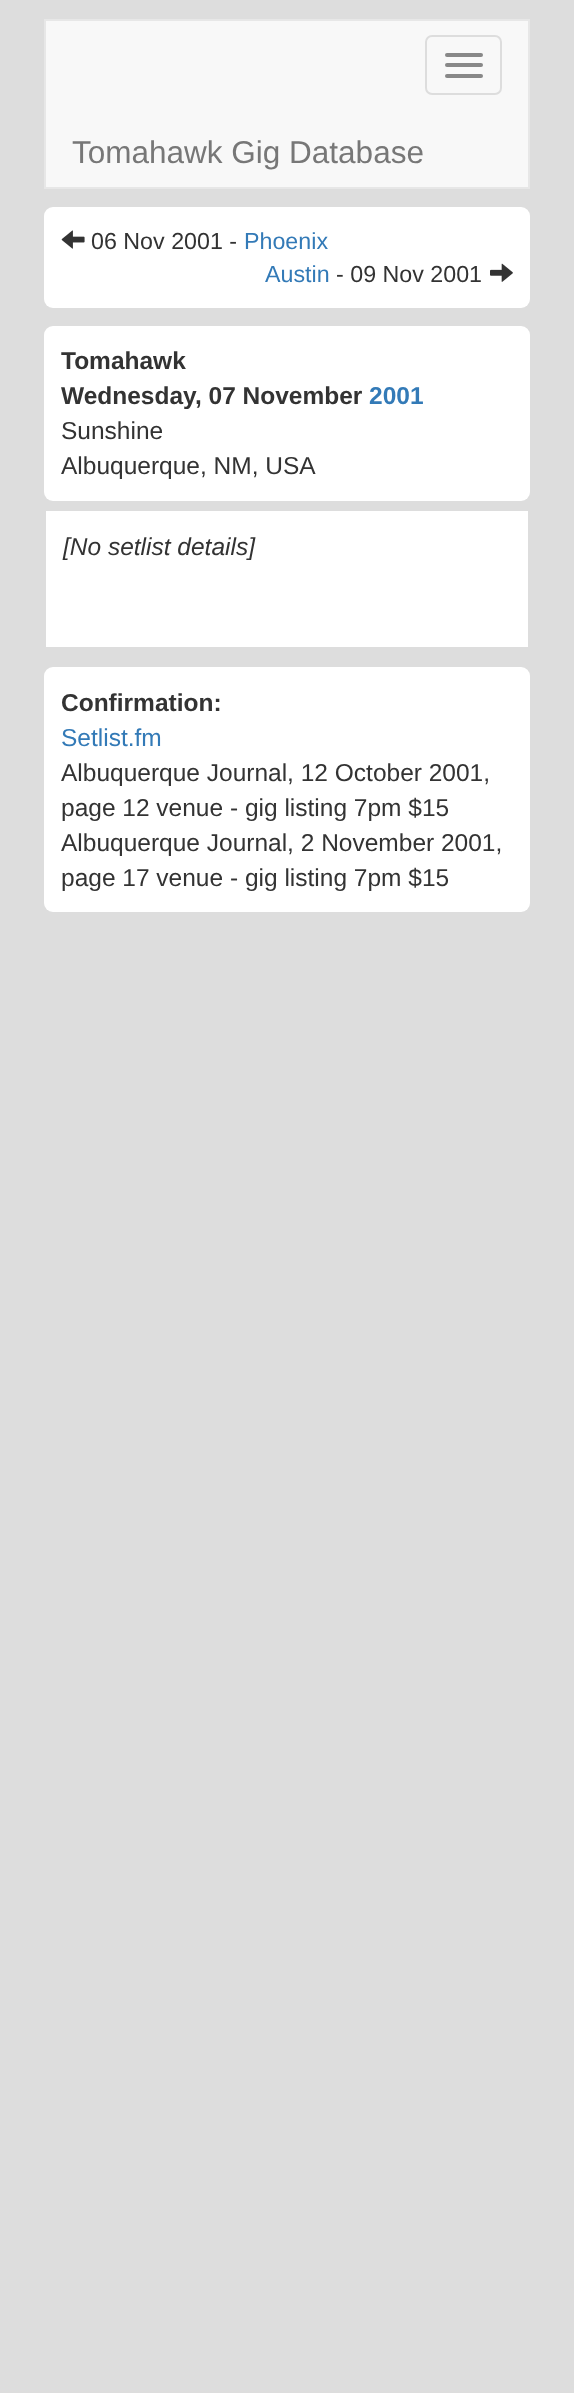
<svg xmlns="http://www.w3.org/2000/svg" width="574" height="2393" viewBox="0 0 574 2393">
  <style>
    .t1 { font: 31.5px Liberation Sans; fill: #777; }
    .t2 { font: 23.25px Liberation Sans; fill: #333; }
    .t3 { font: 23.25px Liberation Sans; fill: #337ab7; }
    .t4 { font: bold 24.5px Liberation Sans; fill: #333; }
    .t5 { font: bold 24.5px Liberation Sans; fill: #337ab7; }
    .t6 { font: 24.5px Liberation Sans; fill: #333; }
    .t7 { font: italic 24.5px Liberation Sans; fill: #333; }
    .t8 { font: 24.5px Liberation Sans; fill: #337ab7; }
  </style>
  <rect width="100%" height="100%" fill="#ddd"/>
  <rect x="45" y="20" width="484" height="168" fill="#f8f8f8" stroke="#e7e7e7" stroke-width="2"/>
  <rect x="426" y="36" width="75" height="58" rx="6" fill="none" stroke="#ddd" stroke-width="2"/>
  <rect x="445" y="53" width="38" height="4" rx="2" fill="#888"/>
  <rect x="445" y="63" width="38" height="4" rx="2" fill="#888"/>
  <rect x="445" y="74" width="38" height="4" rx="2" fill="#888"/>
  <text x="72" y="163" class="t1">Tomahawk Gig Database</text>
  <rect x="44" y="207" width="486" height="101" rx="9" fill="#fff"/>
  <image x="61" y="230" width="24" height="19" href="images/1.png"/>
  <text x="91" y="249" class="t2">06 Nov 2001 -</text>
  <text x="244" y="249" class="t3">Phoenix</text>
  <text x="265" y="282" class="t3">Austin</text>
  <text x="336" y="282" class="t2">- 09 Nov 2001</text>
  <image x="490" y="263" width="23" height="19" href="images/2.png"/>
  <rect x="44" y="326" width="486" height="175" rx="9" fill="#fff"/>
  <text x="61" y="369" class="t4">Tomahawk</text>
  <text x="61" y="404" class="t4">Wednesday, 07 November</text>
  <text x="369" y="404" class="t5">2001</text>
  <text x="61" y="439" class="t6">Sunshine</text>
  <text x="61" y="474" class="t6">Albuquerque, NM, USA</text>
  <rect x="46" y="511" width="482" height="136" fill="#fff"/>
  <text x="63" y="555" class="t7">[No setlist details]</text>
  <rect x="44" y="667" width="486" height="245" rx="9" fill="#fff"/>
  <text x="61" y="711" class="t4">Confirmation:</text>
  <text x="61" y="746" class="t8">Setlist.fm</text>
  <text x="61" y="781" class="t6">Albuquerque Journal, 12 October 2001,</text>
  <text x="61" y="816" class="t6">page 12 venue - gig listing 7pm $15</text>
  <text x="61" y="851" class="t6">Albuquerque Journal, 2 November 2001,</text>
  <text x="61" y="886" class="t6">page 17 venue - gig listing 7pm $15</text>
</svg>
